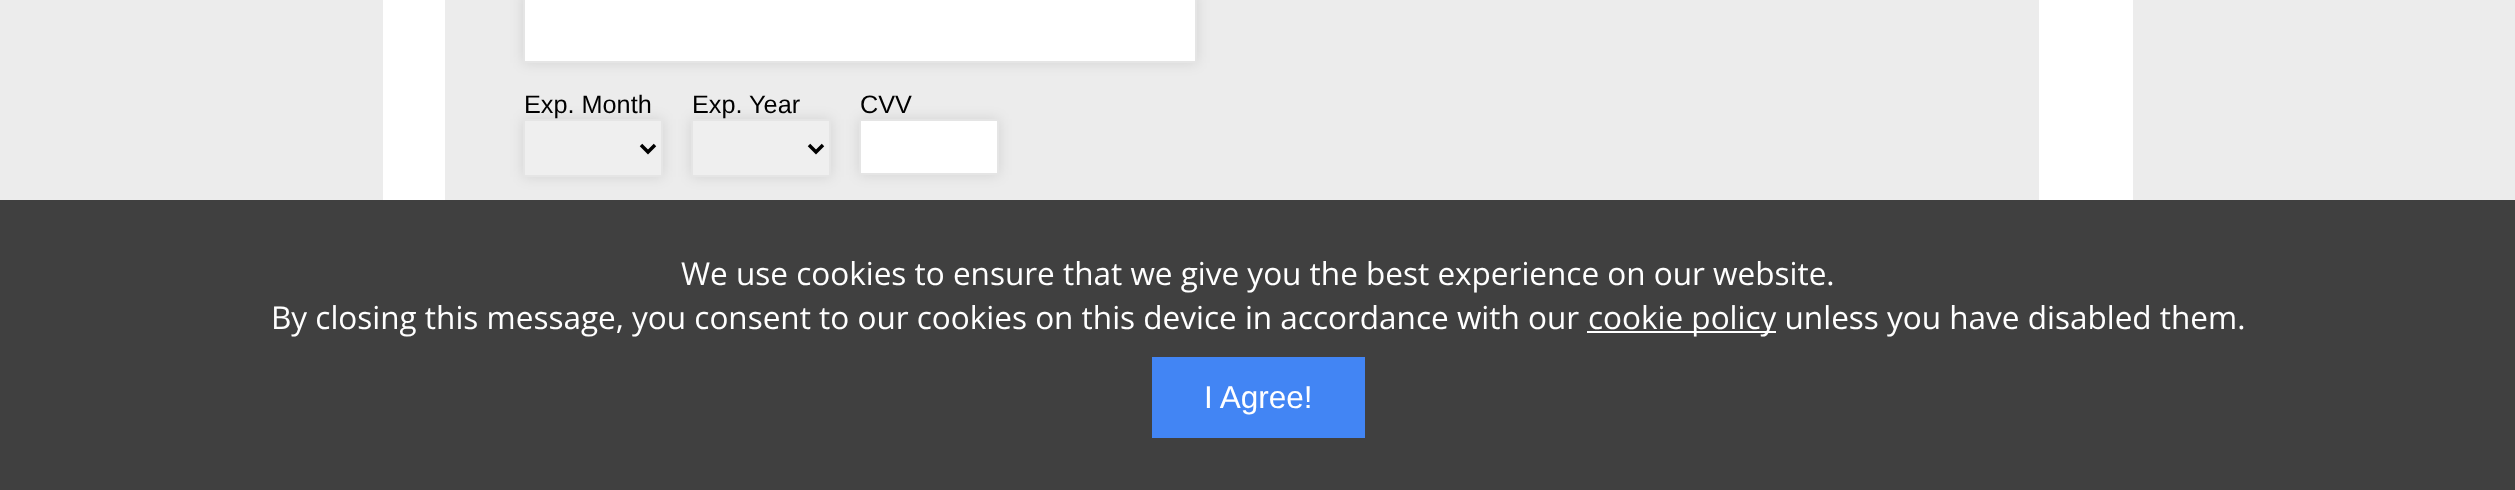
<svg xmlns="http://www.w3.org/2000/svg" width="2515" height="490" viewBox="0 0 2515 490">
  <style>
    .t1 { font: 25.25px Liberation Sans; fill: #000; }
    .t2 { font: 31.5px Open Sans; fill: #fff; }
    .t3 { font: 31.5px Liberation Sans; fill: #fff; }
  </style>
  <rect width="100%" height="100%" fill="#ececec"/>
  <rect x="383" y="0" width="1750" height="200" fill="#fff"/>
  <rect x="445" y="0" width="1594" height="200" fill="#ececec"/>
  <rect x="523" y="-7" width="674" height="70" fill="#0000001a" filter="blur(7px)"/>
  <rect x="524" y="-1" width="672" height="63" fill="#fff" stroke="#e5e5e5" stroke-width="2"/>
  <text x="524" y="113" class="t1">Exp. Month</text>
  <rect x="523" y="119" width="140" height="58" fill="#0000001a" filter="blur(7px)"/>
  <rect x="524" y="120" width="138" height="56" fill="#efefef" stroke="#e5e5e5" stroke-width="2"/>
  <path d="M641 145L648 152L655 145" fill="none" stroke="#000" stroke-width="3.5"/>
  <text x="692" y="113" class="t1">Exp. Year</text>
  <rect x="691" y="119" width="140" height="58" fill="#0000001a" filter="blur(7px)"/>
  <rect x="692" y="120" width="138" height="56" fill="#efefef" stroke="#e5e5e5" stroke-width="2"/>
  <path d="M809 145L816 152L823 145" fill="none" stroke="#000" stroke-width="3.5"/>
  <text x="860" y="113" class="t1">CVV</text>
  <rect x="859" y="119" width="140" height="56" fill="#0000001a" filter="blur(7px)"/>
  <rect x="860" y="120" width="138" height="54" fill="#fff" stroke="#e5e5e5" stroke-width="2"/>
  <rect x="0" y="200" width="2515" height="290" fill="#404040"/>
  <text x="681" y="285" class="t2">We use cookies to ensure that we give you the best experience on our website.</text>
  <text x="271" y="329" class="t2">By closing this message, you consent to our cookies on this device in accordance with our</text>
  <rect x="1587" y="331" width="189" height="2" fill="#fff"/>
  <text x="1588" y="329" class="t2">cookie policy unless you have disabled them.</text>
  <rect x="1152" y="357" width="213" height="81" fill="#4285f4"/>
  <text x="1204" y="408" class="t3">I Agree!</text>
</svg>
